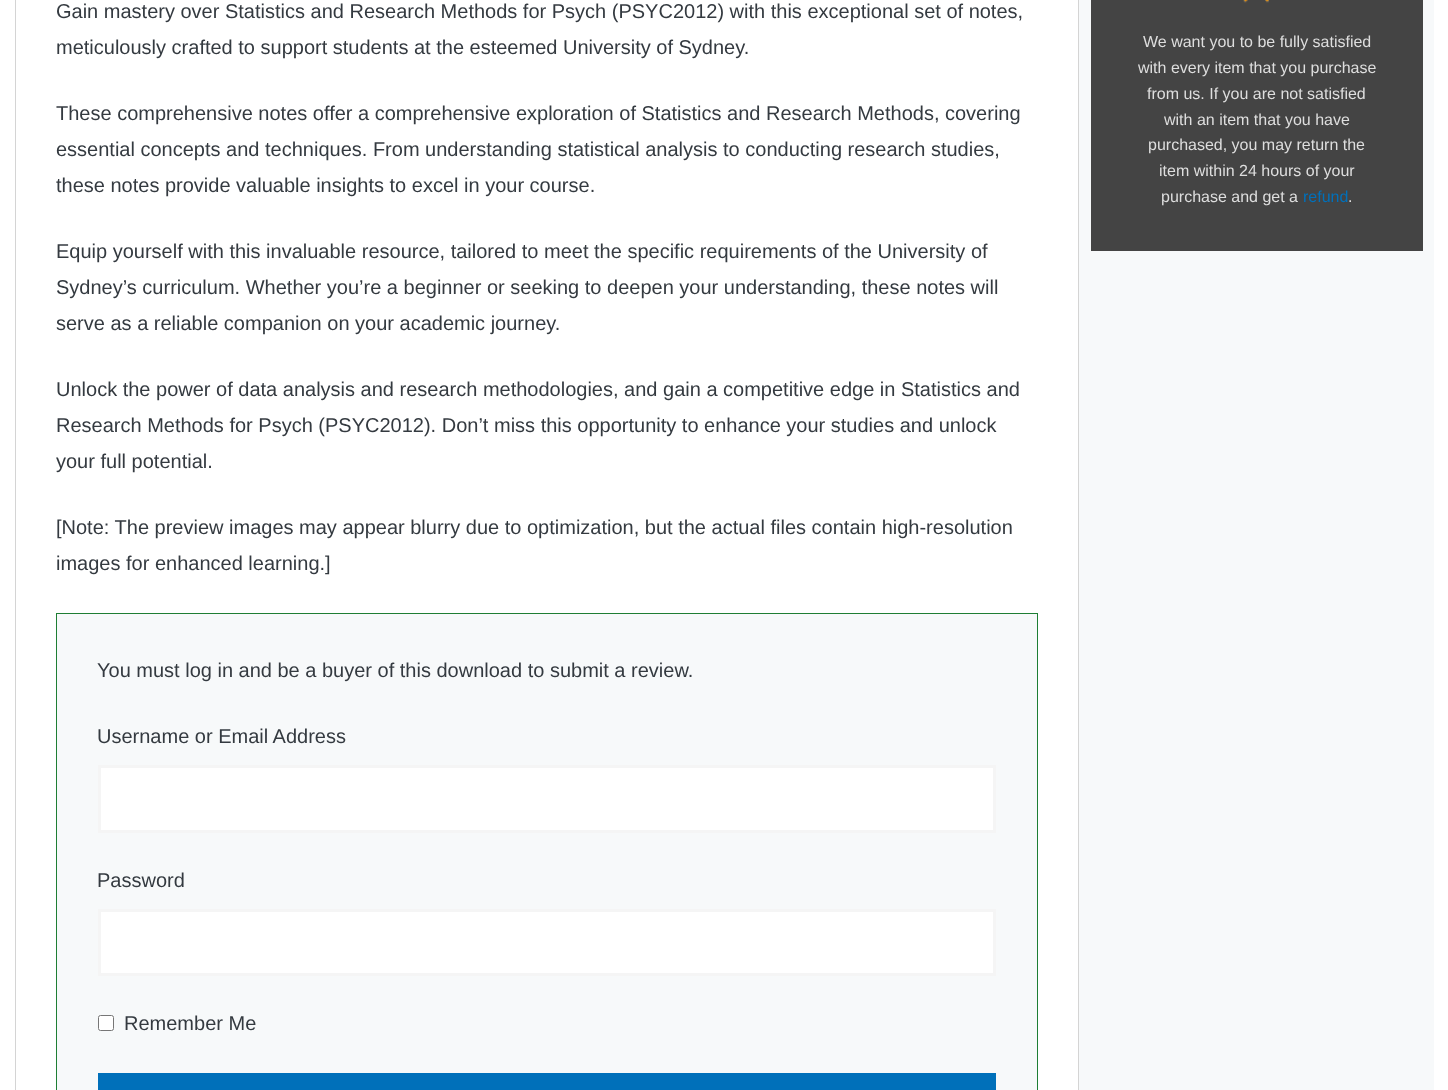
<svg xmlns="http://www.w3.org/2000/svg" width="1448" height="1090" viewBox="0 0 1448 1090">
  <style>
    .t1 { font: 20px Liberation Sans; fill: #343a40; }
    .t2 { font: 16px Liberation Sans; fill: #dedede; }
    .t3 { font: 16px Liberation Sans; fill: #0070ba; }
  </style>
  <rect width="100%" height="100%" fill="#fff"/>
  <rect x="1078" y="0" width="1" height="1090" fill="#d4d4d4"/>
  <rect x="15" y="0" width="1" height="1090" fill="#d4d4d4"/>
  <text x="56" y="18" class="t1">Gain mastery over Statistics and Research Methods for Psych (PSYC2012) with this exceptional set of notes,</text>
  <text x="56" y="54" class="t1">meticulously crafted to support students at the esteemed University of Sydney.</text>
  <text x="56" y="120" class="t1">These comprehensive notes offer a comprehensive exploration of Statistics and Research Methods, covering</text>
  <text x="56" y="156" class="t1">essential concepts and techniques. From understanding statistical analysis to conducting research studies,</text>
  <text x="56" y="192" class="t1">these notes provide valuable insights to excel in your course.</text>
  <text x="56" y="258" class="t1">Equip yourself with this invaluable resource, tailored to meet the specific requirements of the University of</text>
  <text x="56" y="294" class="t1">Sydney’s curriculum. Whether you’re a beginner or seeking to deepen your understanding, these notes will</text>
  <text x="56" y="330" class="t1">serve as a reliable companion on your academic journey.</text>
  <text x="56" y="396" class="t1">Unlock the power of data analysis and research methodologies, and gain a competitive edge in Statistics and</text>
  <text x="56" y="432" class="t1">Research Methods for Psych (PSYC2012). Don’t miss this opportunity to enhance your studies and unlock</text>
  <text x="56" y="468" class="t1">your full potential.</text>
  <text x="56" y="534" class="t1">[Note: The preview images may appear blurry due to optimization, but the actual files contain high-resolution</text>
  <text x="56" y="570" class="t1">images for enhanced learning.]</text>
  <rect x="56.5" y="613.5" width="981" height="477" fill="#f7f9fa" stroke="#1e7e34"/>
  <text x="97" y="677" class="t1">You must log in and be a buyer of this download to submit a review.</text>
  <text x="97" y="743" class="t1">Username or Email Address</text>
  <rect x="99.5" y="766.5" width="895" height="65" fill="#fff" stroke="#f5f5f5" stroke-width="3"/>
  <text x="97" y="887" class="t1">Password</text>
  <rect x="99.5" y="910.5" width="895" height="64" fill="#fff" stroke="#f5f5f5" stroke-width="3"/>
  <rect x="98.5" y="1015.5" width="15" height="15" rx="2" fill="#fff" stroke="#767676"/>
  <text x="124" y="1030" class="t1">Remember Me</text>
  <rect x="98" y="1073" width="898" height="17" fill="#0070ba"/>
  <rect x="1079" y="0" width="355" height="1090" fill="#f7f9fa"/>
  <rect x="1091" y="0" width="332" height="251" fill="#444"/>
  <image x="1243" y="0" width="26" height="3" href="images/1.png"/>
  <text x="1143" y="47" class="t2">We want you to be fully satisfied</text>
  <text x="1138" y="73" class="t2">with every item that you purchase</text>
  <text x="1147" y="99" class="t2">from us. If you are not satisfied</text>
  <text x="1164" y="125" class="t2">with an item that you have</text>
  <text x="1148" y="150" class="t2">purchased, you may return the</text>
  <text x="1159" y="176" class="t2">item within 24 hours of your</text>
  <text x="1161" y="202" class="t2">purchase and get a</text>
  <text x="1303" y="202" class="t3">refund</text>
  <text x="1348" y="202" class="t2">.</text>
</svg>
